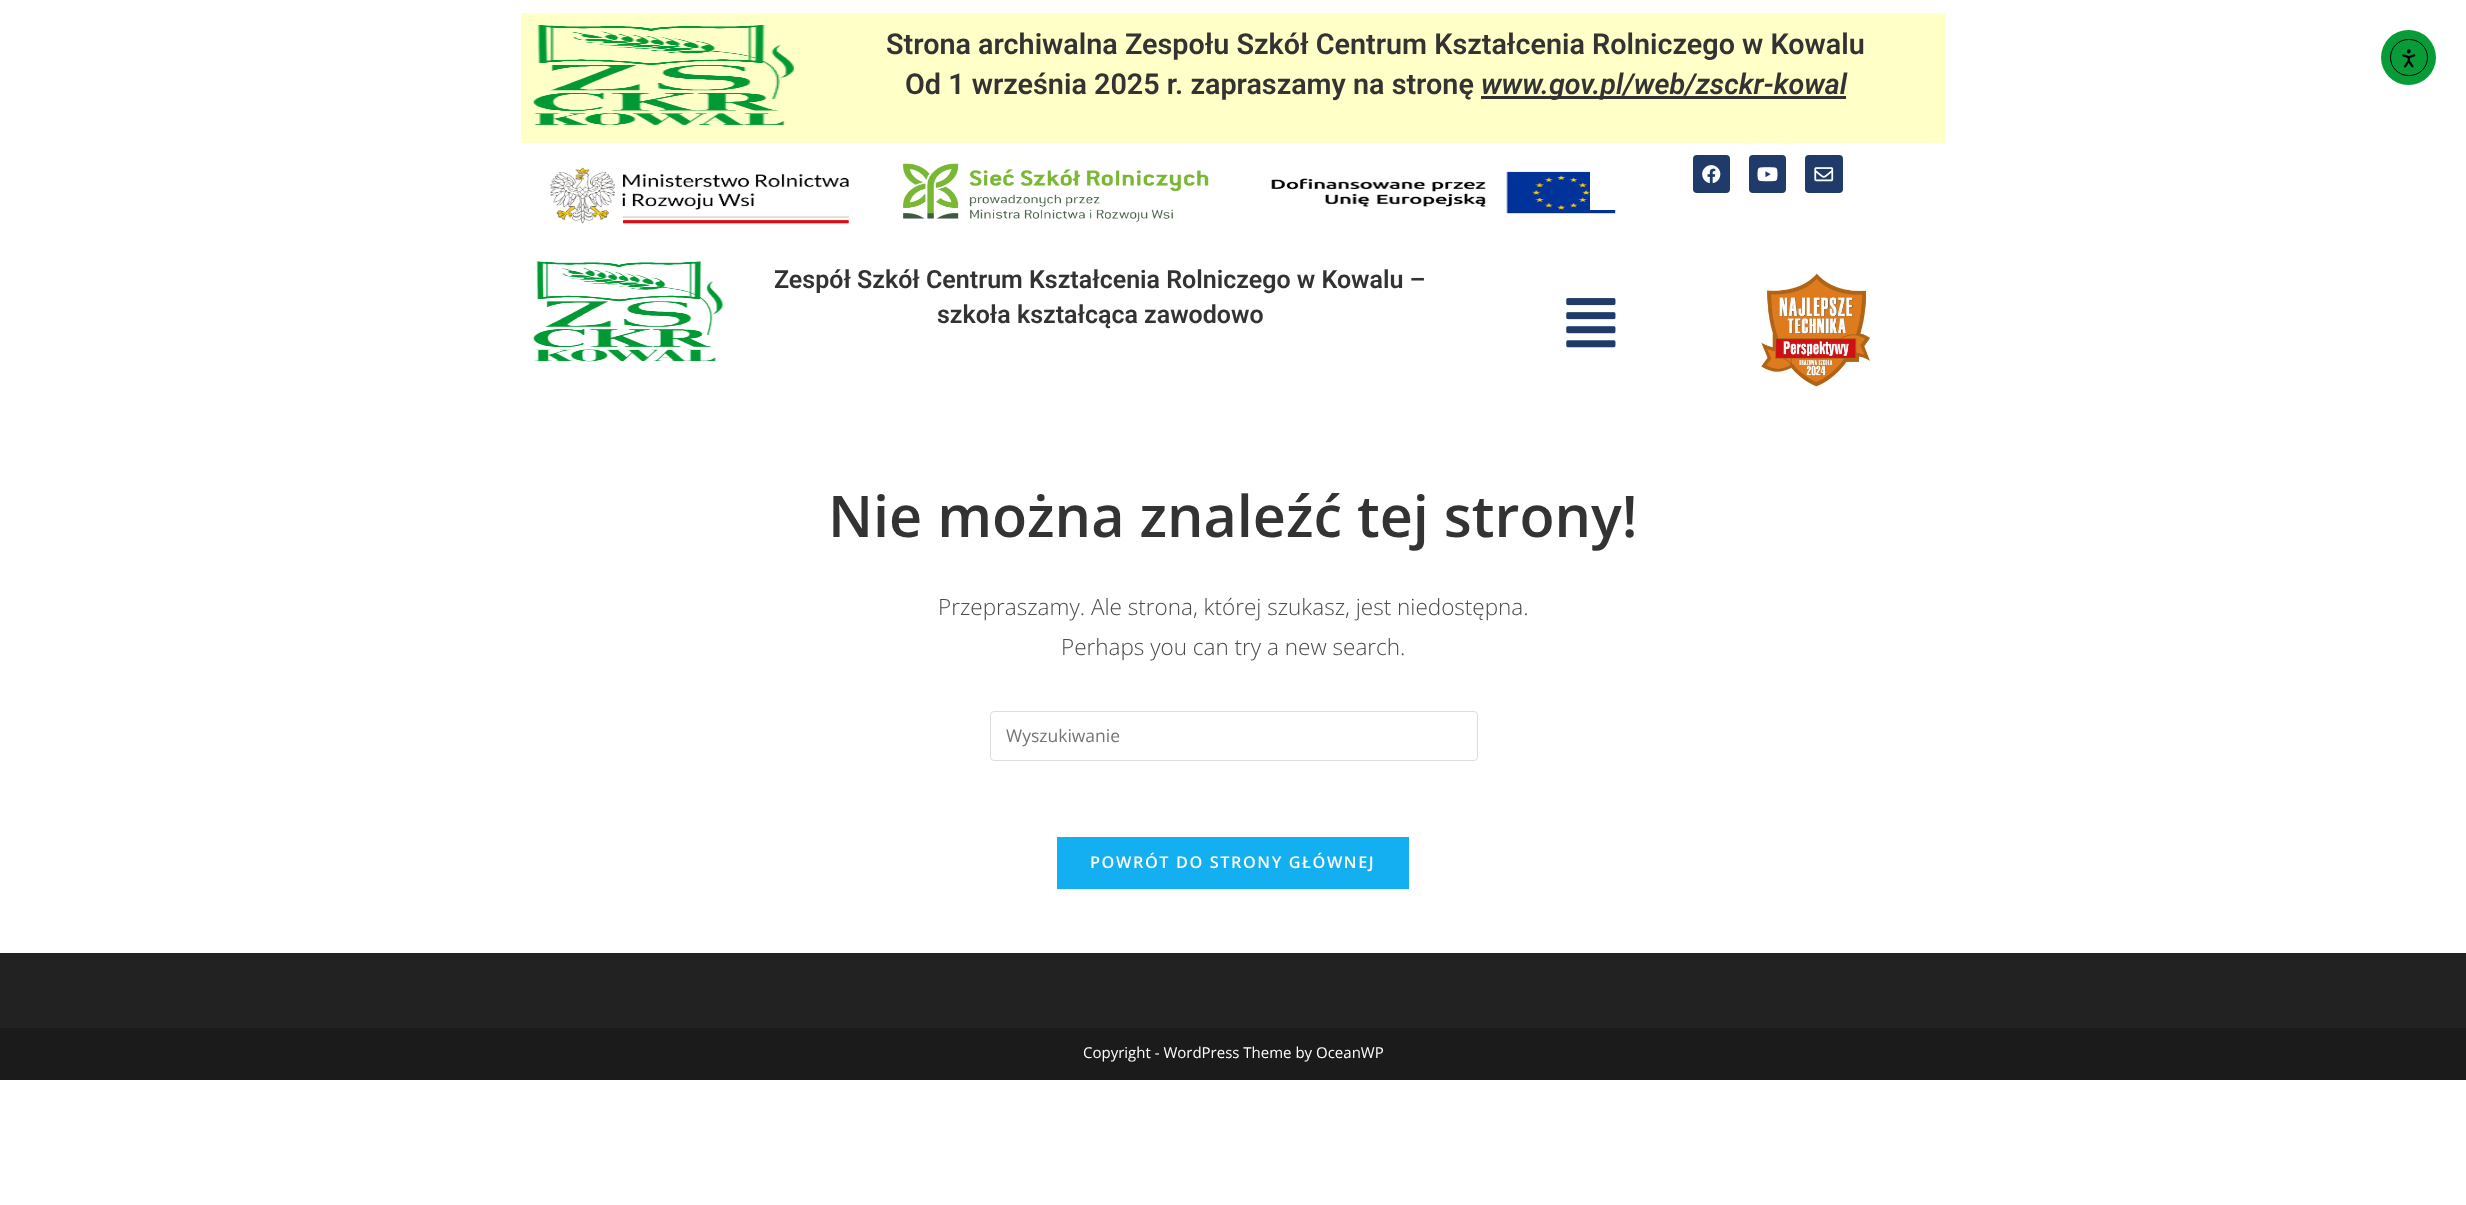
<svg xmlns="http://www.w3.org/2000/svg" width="2466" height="1205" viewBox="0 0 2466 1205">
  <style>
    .t1 { font: 600 28.75px Roboto; fill: #333; }
    .t2 { font: italic 600 28.75px Roboto; fill: #333; }
    .t3 { font: 600 25px Roboto; fill: #333; }
    .t4 { font: 600 57.5px Open Sans; fill: #333; }
    .t5 { font: 300 22.5px Open Sans; fill: #4a4a4a; }
    .t6 { font: 17.5px Open Sans; fill: #757575; }
    .t7 { font: 600 16.25px Open Sans; letter-spacing: 1.6px; fill: #fff; }
    .t8 { font: 15px Open Sans; fill: #fff; }
  </style>
  <rect width="100%" height="100%" fill="#fff"/>
  <rect x="521" y="13" width="1425" height="130" fill="#ffffc8"/>
  <image x="533" y="25" width="261" height="100" href="images/1.png"/>
  <text x="886" y="54" class="t1">Strona archiwalna Zespołu Szkół Centrum Kształcenia Rolniczego w Kowalu</text>
  <text x="905" y="94" class="t1">Od 1 września 2025 r. zapraszamy na stronę</text>
  <rect x="1481" y="96" width="365" height="3" fill="#333"/>
  <text x="1481" y="94" class="t2">www.gov.pl/web/zsckr-kowal</text>
  <image x="550" y="167" width="299" height="57" href="images/2.png"/>
  <image x="903" y="163" width="306" height="59" href="images/3.png"/>
  <image x="1271" y="171" width="345" height="43" href="images/4.png"/>
  <rect x="1590" y="171" width="26" height="39" fill="#fff"/>
  <rect x="1693" y="155" width="37" height="38" rx="4" fill="#203b6a"/>
  <image x="1702" y="165" width="19" height="19" href="images/5.png"/>
  <rect x="1749" y="155" width="37" height="38" rx="4" fill="#203b6a"/>
  <image x="1757" y="167" width="21" height="15" href="images/6.png"/>
  <rect x="1805" y="155" width="38" height="38" rx="4" fill="#203b6a"/>
  <image x="1814" y="167" width="20" height="15" href="images/7.png"/>
  <image x="533" y="261" width="190" height="101" href="images/8.png"/>
  <text x="774" y="288" class="t3">Zespół Szkół Centrum Kształcenia Rolniczego w Kowalu –</text>
  <text x="937" y="323" class="t3">szkoła kształcąca zawodowo</text>
  <image x="1566" y="298" width="50" height="50" href="images/9.png"/>
  <image x="1761" y="273" width="109" height="114" href="images/10.png"/>
  <text x="828" y="537" class="t4">Nie można znaleźć tej strony!</text>
  <text x="938" y="615" class="t5">Przepraszamy. Ale strona, której szukasz, jest niedostępna.</text>
  <text x="1061" y="655" class="t5">Perhaps you can try a new search.</text>
  <rect x="990.5" y="711.5" width="487" height="49" rx="3.5" fill="none" stroke="#ddd"/>
  <text x="1006" y="742" class="t6">Wyszukiwanie</text>
  <rect x="1057" y="837" width="352" height="52" fill="#13aff0"/>
  <text x="1090" y="868" class="t7">POWRÓT DO STRONY GŁÓWNEJ</text>
  <rect x="0" y="953" width="2466" height="75" fill="#222"/>
  <rect x="0" y="1028" width="2466" height="52" fill="#1b1b1b"/>
  <text x="1083" y="1058" class="t8">Copyright - WordPress Theme by OceanWP</text>
  <circle cx="2408.5" cy="57.5" r="27.5" fill="#089c39"/>
  <rect x="2390.5" y="39.5" width="37" height="36" rx="18" fill="none" stroke="#000"/>
  <image x="2402" y="49" width="14" height="19" href="images/11.png"/>
</svg>
